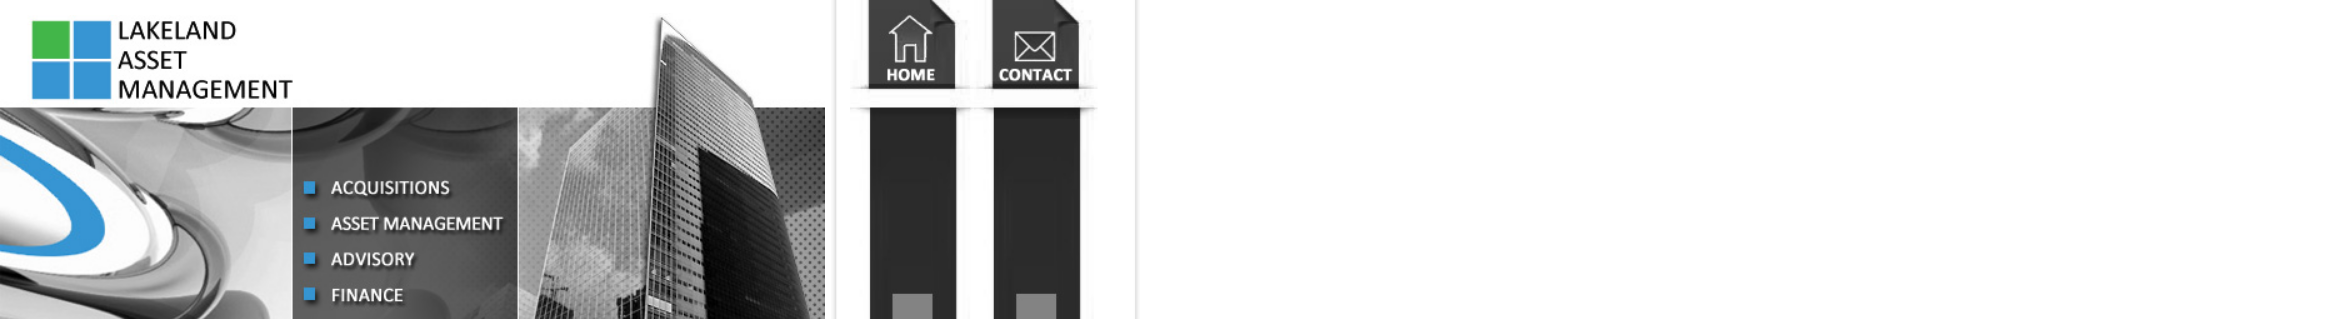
<svg xmlns="http://www.w3.org/2000/svg" width="2329" height="319" viewBox="0 0 2329 319">
  <rect width="100%" height="100%" fill="#fff"/>
  <image x="0" y="13" width="825" height="306" href="images/1.png"/>
  <image x="27" y="15" width="266" height="89" href="images/2.png"/>
  <image x="831" y="0" width="309" height="319" href="images/3.png"/>
  <image x="850" y="0" width="124" height="319" href="images/4.png"/>
  <image x="974" y="0" width="124" height="319" href="images/5.png"/>
</svg>
